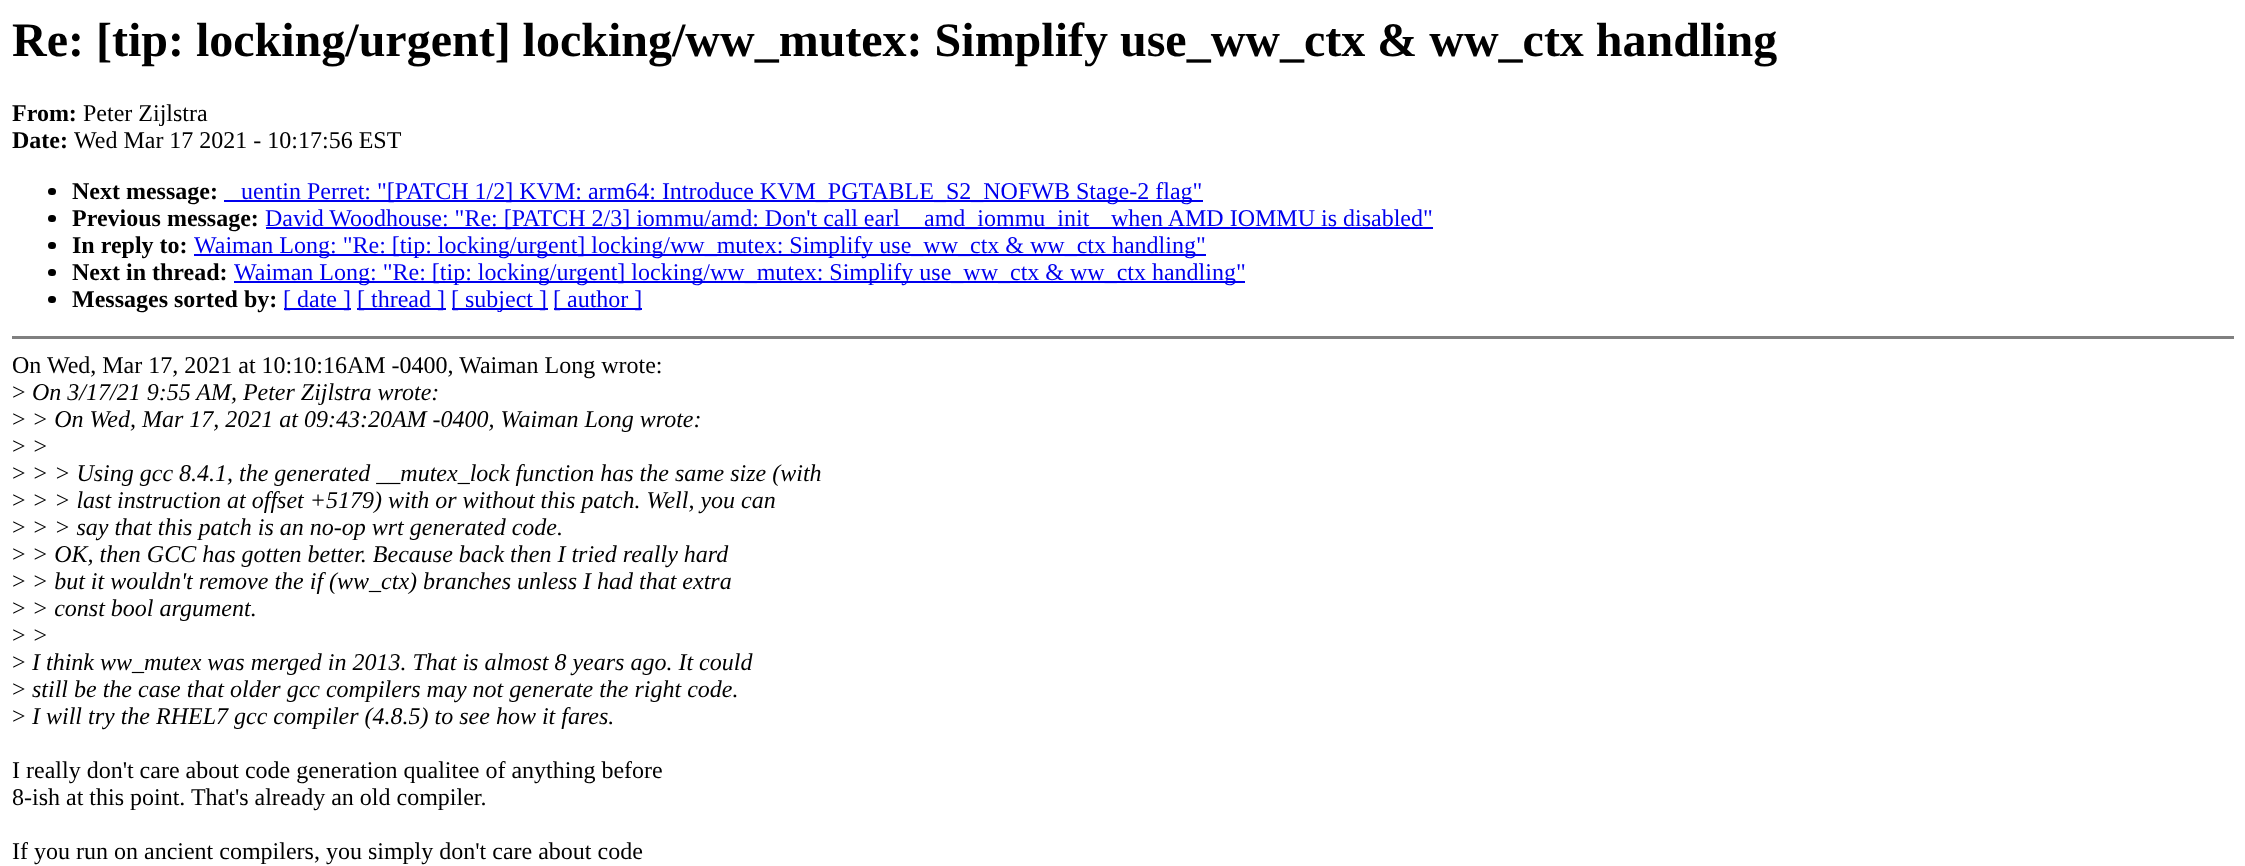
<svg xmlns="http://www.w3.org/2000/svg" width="2245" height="866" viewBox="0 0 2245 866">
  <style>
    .t1 { font: bold 48px Liberation Serif; fill: #000; }
    .t2 { font: bold 24px Liberation Serif; fill: #000; }
    .t3 { font: 24px Liberation Serif; fill: #000; }
    .t4 { font: 24px Liberation Serif; fill: #00e; }
    .t5 { font: italic 24px Liberation Serif; fill: #000; }
  </style>
  <rect width="100%" height="100%" fill="#fff"/>
  <text x="12" y="56" class="t1">Re: [tip: locking/urgent] locking/ww_mutex: Simplify use_ww_ctx &amp; ww_ctx handling</text>
  <text x="12" y="121" class="t2">From:</text>
  <text x="83" y="121" class="t3">Peter Zijlstra</text>
  <text x="12" y="148" class="t2">Date:</text>
  <text x="74" y="148" class="t3">Wed Mar 17 2021 - 10:17:56 EST</text>
  <rect x="48" y="188" width="8" height="7" rx="3.5" fill="#000"/>
  <text x="72" y="199" class="t2">Next message:</text>
  <rect x="224" y="200" width="979" height="2" fill="#00e"/>
  <text x="241" y="199" class="t4">uentin Perret: "[PATCH 1/2] KVM: arm64: Introduce KVM_PGTABLE_S2_NOFWB Stage-2 flag"</text>
  <rect x="48" y="215" width="8" height="7" rx="3.5" fill="#000"/>
  <text x="72" y="226" class="t2">Previous message:</text>
  <rect x="266" y="227" width="1167" height="2" fill="#00e"/>
  <text x="265" y="226" class="t4">David Woodhouse: "Re: [PATCH 2/3] iommu/amd: Don't call earl</text>
  <text x="924" y="226" class="t4">amd_iommu_init</text>
  <text x="1111" y="226" class="t4">when AMD IOMMU is disabled"</text>
  <rect x="48" y="242" width="8" height="7" rx="3.5" fill="#000"/>
  <text x="72" y="253" class="t2">In reply to:</text>
  <rect x="194" y="254" width="1012" height="2" fill="#00e"/>
  <text x="194" y="253" class="t4">Waiman Long: "Re: [tip: locking/urgent] locking/ww_mutex: Simplify use_ww_ctx &amp; ww_ctx handling"</text>
  <rect x="48" y="269" width="8" height="7" rx="3.5" fill="#000"/>
  <text x="72" y="280" class="t2">Next in thread:</text>
  <rect x="234" y="281" width="1011" height="2" fill="#00e"/>
  <text x="234" y="280" class="t4">Waiman Long: "Re: [tip: locking/urgent] locking/ww_mutex: Simplify use_ww_ctx &amp; ww_ctx handling"</text>
  <rect x="48" y="296" width="8" height="7" rx="3.5" fill="#000"/>
  <text x="72" y="307" class="t2">Messages sorted by:</text>
  <rect x="284" y="308" width="67" height="2" fill="#00e"/>
  <text x="283" y="307" class="t4">[ date ]</text>
  <rect x="357" y="308" width="89" height="2" fill="#00e"/>
  <text x="357" y="307" class="t4">[ thread ]</text>
  <rect x="452" y="308" width="96" height="2" fill="#00e"/>
  <text x="451" y="307" class="t4">[ subject ]</text>
  <rect x="554" y="308" width="88" height="2" fill="#00e"/>
  <text x="553" y="307" class="t4">[ author ]</text>
  <rect x="12" y="336" width="2222" height="3" fill="#808080"/>
  <text x="12" y="373" class="t3">On Wed, Mar 17, 2021 at 10:10:16AM -0400, Waiman Long wrote:</text>
  <text x="12" y="400" class="t3">&gt;</text>
  <text x="32" y="400" class="t5">On 3/17/21 9:55 AM, Peter Zijlstra wrote:</text>
  <text x="12" y="427" class="t3">&gt;</text>
  <text x="32" y="427" class="t5">&gt; On Wed, Mar 17, 2021 at 09:43:20AM -0400, Waiman Long wrote:</text>
  <text x="12" y="454" class="t3">&gt;</text>
  <text x="32" y="454" class="t5">&gt;</text>
  <text x="12" y="481" class="t3">&gt;</text>
  <text x="32" y="481" class="t5">&gt; &gt; Using gcc 8.4.1, the generated __mutex_lock function has the same size (with</text>
  <text x="12" y="508" class="t3">&gt;</text>
  <text x="32" y="508" class="t5">&gt; &gt; last instruction at offset +5179) with or without this patch. Well, you can</text>
  <text x="12" y="535" class="t3">&gt;</text>
  <text x="32" y="535" class="t5">&gt; &gt; say that this patch is an no-op wrt generated code.</text>
  <text x="12" y="562" class="t3">&gt;</text>
  <text x="32" y="562" class="t5">&gt; OK, then GCC has gotten better. Because back then I tried really hard</text>
  <text x="12" y="589" class="t3">&gt;</text>
  <text x="32" y="589" class="t5">&gt; but it wouldn't remove the if (ww_ctx) branches unless I had that extra</text>
  <text x="12" y="616" class="t3">&gt;</text>
  <text x="32" y="616" class="t5">&gt; const bool argument.</text>
  <text x="12" y="643" class="t3">&gt;</text>
  <text x="32" y="643" class="t5">&gt;</text>
  <text x="12" y="670" class="t3">&gt;</text>
  <text x="32" y="670" class="t5">I think ww_mutex was merged in 2013. That is almost 8 years ago. It could</text>
  <text x="12" y="697" class="t3">&gt;</text>
  <text x="32" y="697" class="t5">still be the case that older gcc compilers may not generate the right code.</text>
  <text x="12" y="724" class="t3">&gt;</text>
  <text x="32" y="724" class="t5">I will try the RHEL7 gcc compiler (4.8.5) to see how it fares.</text>
  <text x="12" y="778" class="t3">I really don't care about code generation qualitee of anything before</text>
  <text x="12" y="805" class="t3">8-ish at this point. That's already an old compiler.</text>
  <text x="12" y="859" class="t3">If you run on ancient compilers, you simply don't care about code</text>
</svg>
